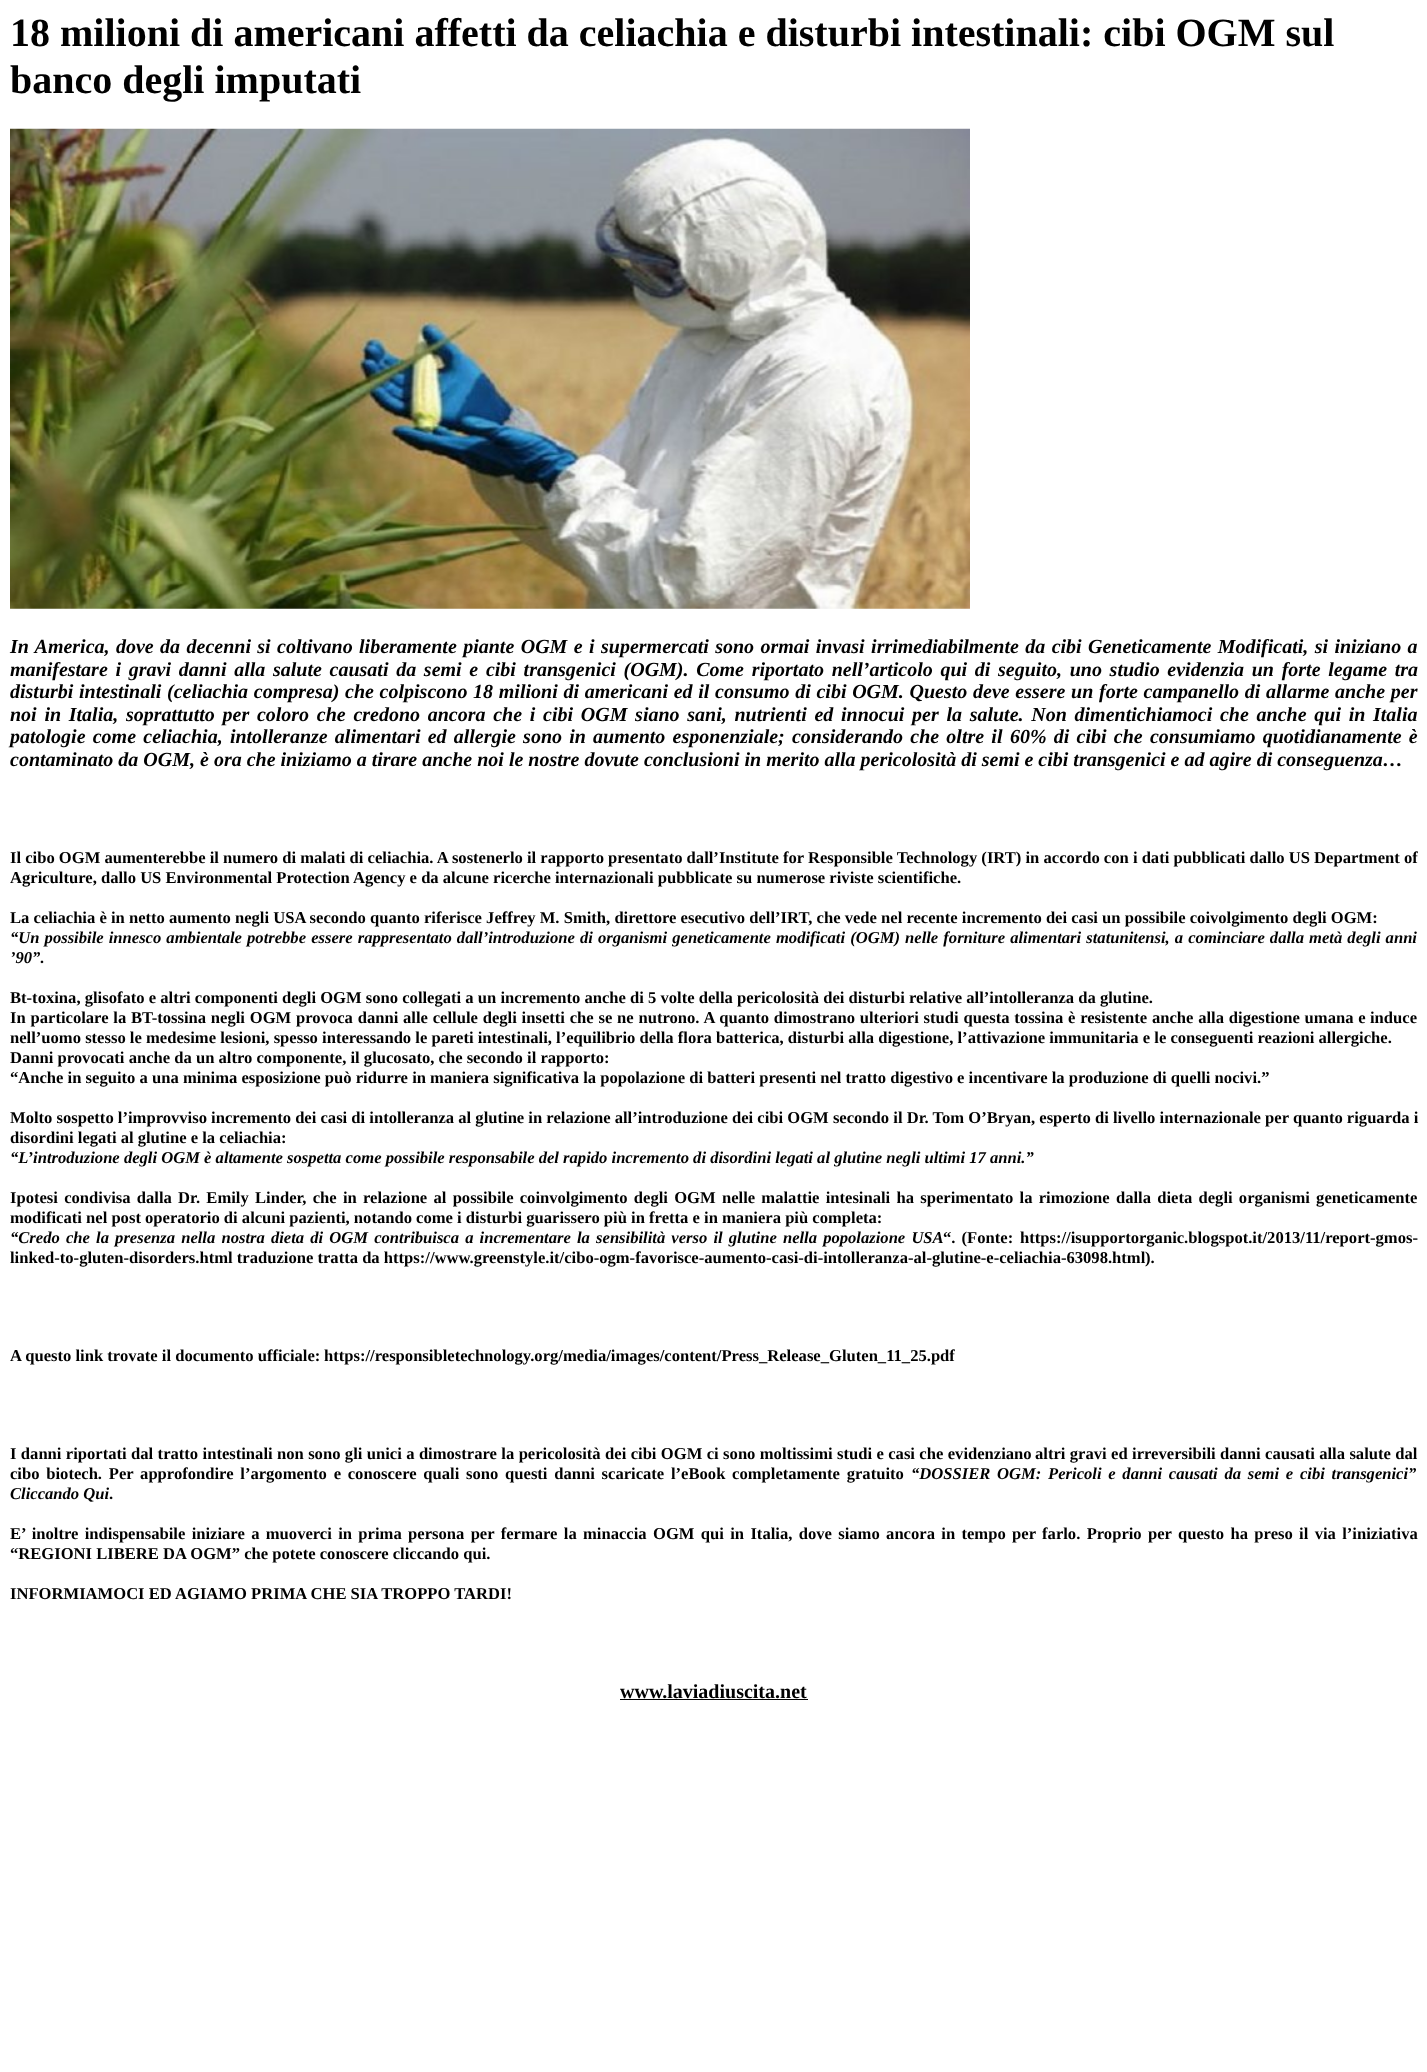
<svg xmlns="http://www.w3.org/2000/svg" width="1427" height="2072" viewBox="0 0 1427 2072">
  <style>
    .t1 { font: bold 40px Liberation Serif; fill: #000; }
    .t2 { font: italic bold 20px Liberation Serif; fill: #000; }
    .t3 { font: bold 16.6px Liberation Serif; fill: #000; }
    .t4 { font: italic bold 16.6px Liberation Serif; fill: #000; }
    .t5 { font: bold 20px Liberation Serif; fill: #000; }
  </style>
  <rect width="100%" height="100%" fill="#fff"/>
  <text x="10" y="46" class="t1">18 milioni di americani affetti da celiachia e disturbi intestinali: cibi OGM sul</text>
  <text x="10" y="93" class="t1">banco degli imputati</text>
  <image x="10" y="128" width="960" height="481" href="images/1.png"/>
  <text x="10" y="653" word-spacing="1.4" class="t2">In America, dove da decenni si coltivano liberamente piante OGM e i supermercati sono ormai invasi irrimediabilmente da cibi Geneticamente Modificati, si iniziano a</text>
  <text x="10" y="676" word-spacing="2.7" class="t2">manifestare i gravi danni alla salute causati da semi e cibi transgenici (OGM). Come riportato nell’articolo qui di seguito, uno studio evidenzia un forte legame tra</text>
  <text x="10" y="698" word-spacing="0.7" class="t2">disturbi intestinali (celiachia compresa) che colpiscono 18 milioni di americani ed il consumo di cibi OGM. Questo deve essere un forte campanello di allarme anche per</text>
  <text x="10" y="721" word-spacing="2.7" class="t2">noi in Italia, soprattutto per coloro che credono ancora che i cibi OGM siano sani, nutrienti ed innocui per la salute. Non dimentichiamoci che anche qui in Italia</text>
  <text x="10" y="743" word-spacing="2.2" class="t2">patologie come celiachia, intolleranze alimentari ed allergie sono in aumento esponenziale; considerando che oltre il</text>
  <text x="1010" y="743" word-spacing="2.2" class="t2">60% di cibi che consumiamo quotidianamente è</text>
  <text x="10" y="766" class="t2">contaminato da OGM, è ora che iniziamo a tirare anche noi le nostre dovute conclusioni in merito alla pericolosità di semi e cibi transgenici e ad agire di conseguenza…</text>
  <text x="10" y="863" class="t3">Il cibo OGM aumenterebbe il numero di malati di celiachia. A sostenerlo il rapporto presentato dall’Institute for Responsible Technology (IRT) in accordo con i dati pubblicati dallo US Department of</text>
  <text x="10" y="883" class="t3">Agriculture, dallo US Environmental Protection Agency e da alcune ricerche internazionali pubblicate su numerose riviste scientifiche.</text>
  <text x="10" y="923" class="t3">La celiachia è in netto aumento negli USA secondo quanto riferisce Jeffrey M. Smith, direttore esecutivo dell’IRT, che vede nel recente incremento dei casi un possibile coivolgimento degli OGM:</text>
  <text x="10" y="943" word-spacing="0.95" class="t4">“Un possibile innesco ambientale potrebbe essere rappresentato dall’introduzione di organismi geneticamente modificati (OGM) nelle forniture alimentari statunitensi, a cominciare dalla metà degli anni</text>
  <text x="10" y="963" class="t4">’90”.</text>
  <text x="10" y="1003" class="t3">Bt-toxina, glisofato e altri componenti degli OGM sono collegati a un incremento anche di 5 volte della pericolosità dei disturbi relative all’intolleranza da glutine.</text>
  <text x="10" y="1023" word-spacing="0.65" class="t3">In particolare la BT-tossina negli OGM provoca danni alle cellule degli insetti che se ne nutrono. A quanto dimostrano ulteriori studi questa tossina è resistente anche alla digestione umana e</text>
  <text x="1370" y="1023" class="t3">induce</text>
  <text x="10" y="1043" class="t3">nell’uomo stesso le medesime lesioni, spesso interessando le pareti intestinali, l’equilibrio della flora batterica, disturbi alla digestione, l’attivazione immunitaria e le conseguenti reazioni allergiche.</text>
  <text x="10" y="1063" class="t3">Danni provocati anche da un altro componente, il glucosato, che secondo il rapporto:</text>
  <text x="10" y="1083" class="t3">“Anche in seguito a una minima esposizione può ridurre in maniera significativa la popolazione di batteri presenti nel tratto digestivo e incentivare la produzione di quelli nocivi.”</text>
  <text x="10" y="1123" class="t3">Molto sospetto l’improvviso incremento dei casi di intolleranza al glutine in relazione all’introduzione dei cibi OGM secondo il Dr. Tom O’Bryan, esperto di livello internazionale per quanto riguarda i</text>
  <text x="10" y="1143" class="t3">disordini legati al glutine e la celiachia:</text>
  <text x="10" y="1163" class="t4">“L’introduzione degli OGM è altamente sospetta come possibile responsabile del rapido incremento di disordini legati al glutine negli ultimi 17 anni.”</text>
  <text x="10" y="1203" word-spacing="2.1" class="t3">Ipotesi condivisa dalla Dr. Emily Linder, che in relazione al possibile coinvolgimento degli OGM nelle malattie intesinali ha sperimentato la rimozione dalla dieta degli organismi geneticamente</text>
  <text x="10" y="1223" class="t3">modificati nel post operatorio di alcuni pazienti, notando come i disturbi guarissero più in fretta e in maniera più completa:</text>
  <text x="10" y="1243" word-spacing="2" class="t4">“Credo che la presenza nella nostra dieta di OGM contribuisca a incrementare la sensibilità verso il glutine nella popolazione USA</text>
  <text x="943" y="1243" word-spacing="2" class="t3">“. (Fonte:</text>
  <text x="1020" y="1243" class="t3">https://isupportorganic.blogspot.it/2013/11/report-gmos-</text>
  <text x="10" y="1263" class="t3">linked-to-gluten-disorders.html traduzione tratta da https://www.greenstyle.it/cibo-ogm-favorisce-aumento-casi-di-intolleranza-al-glutine-e-celiachia-63098.html</text>
  <text x="1145" y="1263" class="t3">).</text>
  <text x="10" y="1361" class="t3">A questo link trovate il documento ufficiale:</text>
  <text x="324" y="1361" class="t3">https://responsibletechnology.org/media/images/content/Press_Release_Gluten_11_25.pdf</text>
  <text x="10" y="1459" word-spacing="0.25" class="t3">I danni riportati dal tratto intestinali non sono gli unici a dimostrare la pericolosità dei cibi OGM ci sono moltissimi studi e casi che evidenziano</text>
  <text x="1035" y="1459" word-spacing="0.25" class="t3">altri gravi ed irreversibili danni causati alla salute dal</text>
  <text x="10" y="1479" word-spacing="2.6" class="t3">cibo biotech. Per approfondire l’argomento e conoscere quali sono questi danni scaricate l’eBook completamente gratuito</text>
  <text x="911" y="1479" word-spacing="2.6" class="t4">“DOSSIER OGM: Pericoli e danni causati da semi e cibi transgenici”</text>
  <text x="10" y="1499" class="t4">Cliccando Qui</text>
  <text x="109" y="1499" class="t3">.</text>
  <text x="10" y="1539" word-spacing="2.2" class="t3">E’ inoltre indispensabile iniziare a muoverci in prima persona per fermare la minaccia OGM qui in Italia, dove siamo ancora in tempo per farlo. Proprio per questo ha preso il via l’iniziativa</text>
  <text x="10" y="1559" class="t3">“REGIONI LIBERE DA OGM” che potete conoscere cliccando qui.</text>
  <text x="10" y="1599" class="t3">INFORMIAMOCI ED AGIAMO PRIMA CHE SIA TROPPO TARDI!</text>
  <text x="620" y="1698" class="t5">www.laviadiuscita.net</text>
  <rect x="620" y="1699" width="188" height="1" fill="#000"/>
</svg>
